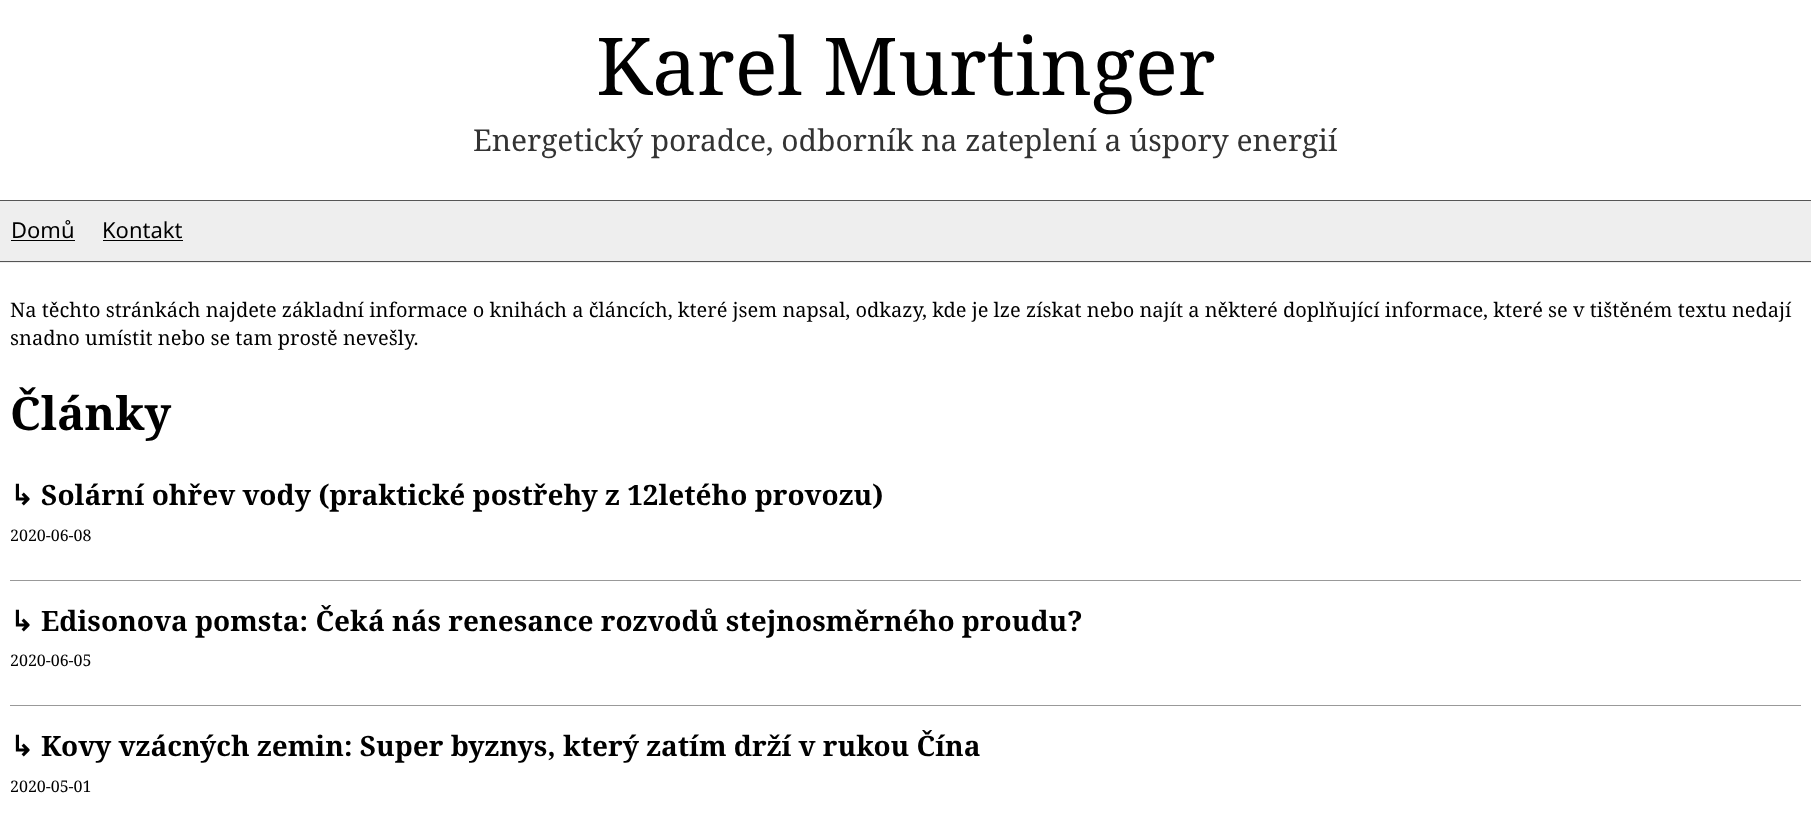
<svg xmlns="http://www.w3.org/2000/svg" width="1811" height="829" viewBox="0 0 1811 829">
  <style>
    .t1 { font: 80px Noto Serif; fill: #000; }
    .t2 { font: 30px Noto Serif; fill: #333; }
    .t3 { font: 22px Noto Sans; fill: #000; }
    .t4 { font: 20px Noto Serif; fill: #000; }
    .t5 { font: bold 46px Noto Serif; fill: #000; }
    .t6 { font: bold 28px DejaVu Sans; fill: #000; }
    .t7 { font: bold 28px Noto Serif; fill: #000; }
    .t8 { font: 16px Noto Serif; fill: #000; }
  </style>
  <rect width="100%" height="100%" fill="#fff"/>
  <text x="596" y="95" class="t1">Karel Murtinger</text>
  <text x="473" y="151" class="t2">Energetický poradce, odborník na zateplení a úspory energií</text>
  <rect x="0" y="201" width="1811" height="62" fill="#eee"/>
  <rect x="0" y="200" width="1811" height="1" fill="#555"/>
  <rect x="0" y="261" width="1811" height="1" fill="#555"/>
  <text x="11" y="238" class="t3">Domů</text>
  <rect x="11" y="240" width="64" height="1" fill="#000"/>
  <text x="102" y="238" class="t3">Kontakt</text>
  <rect x="103" y="240" width="80" height="1" fill="#000"/>
  <text x="10" y="317" class="t4">Na těchto stránkách najdete základní informace o knihách a článcích, které jsem napsal, odkazy, kde je lze získat nebo najít a některé doplňující informace, které se v tištěném textu nedají</text>
  <text x="10" y="345" class="t4">snadno umístit nebo se tam prostě nevešly.</text>
  <text x="10" y="430" class="t5">Články</text>
  <rect x="10" y="580" width="1791" height="1" fill="#999"/>
  <text x="10" y="505" class="t6">↳</text>
  <text x="41" y="505" class="t7">Solární ohřev vody (praktické postřehy z 12letého provozu)</text>
  <text x="10" y="541" class="t8">2020-06-08</text>
  <rect x="10" y="705" width="1791" height="1" fill="#999"/>
  <text x="10" y="631" class="t6">↳</text>
  <text x="41" y="631" class="t7">Edisonova pomsta: Čeká nás renesance rozvodů stejnosměrného proudu?</text>
  <text x="10" y="666" class="t8">2020-06-05</text>
  <text x="10" y="756" class="t6">↳</text>
  <text x="41" y="756" class="t7">Kovy vzácných zemin: Super byznys, který zatím drží v rukou Čína</text>
  <text x="10" y="792" class="t8">2020-05-01</text>
</svg>
